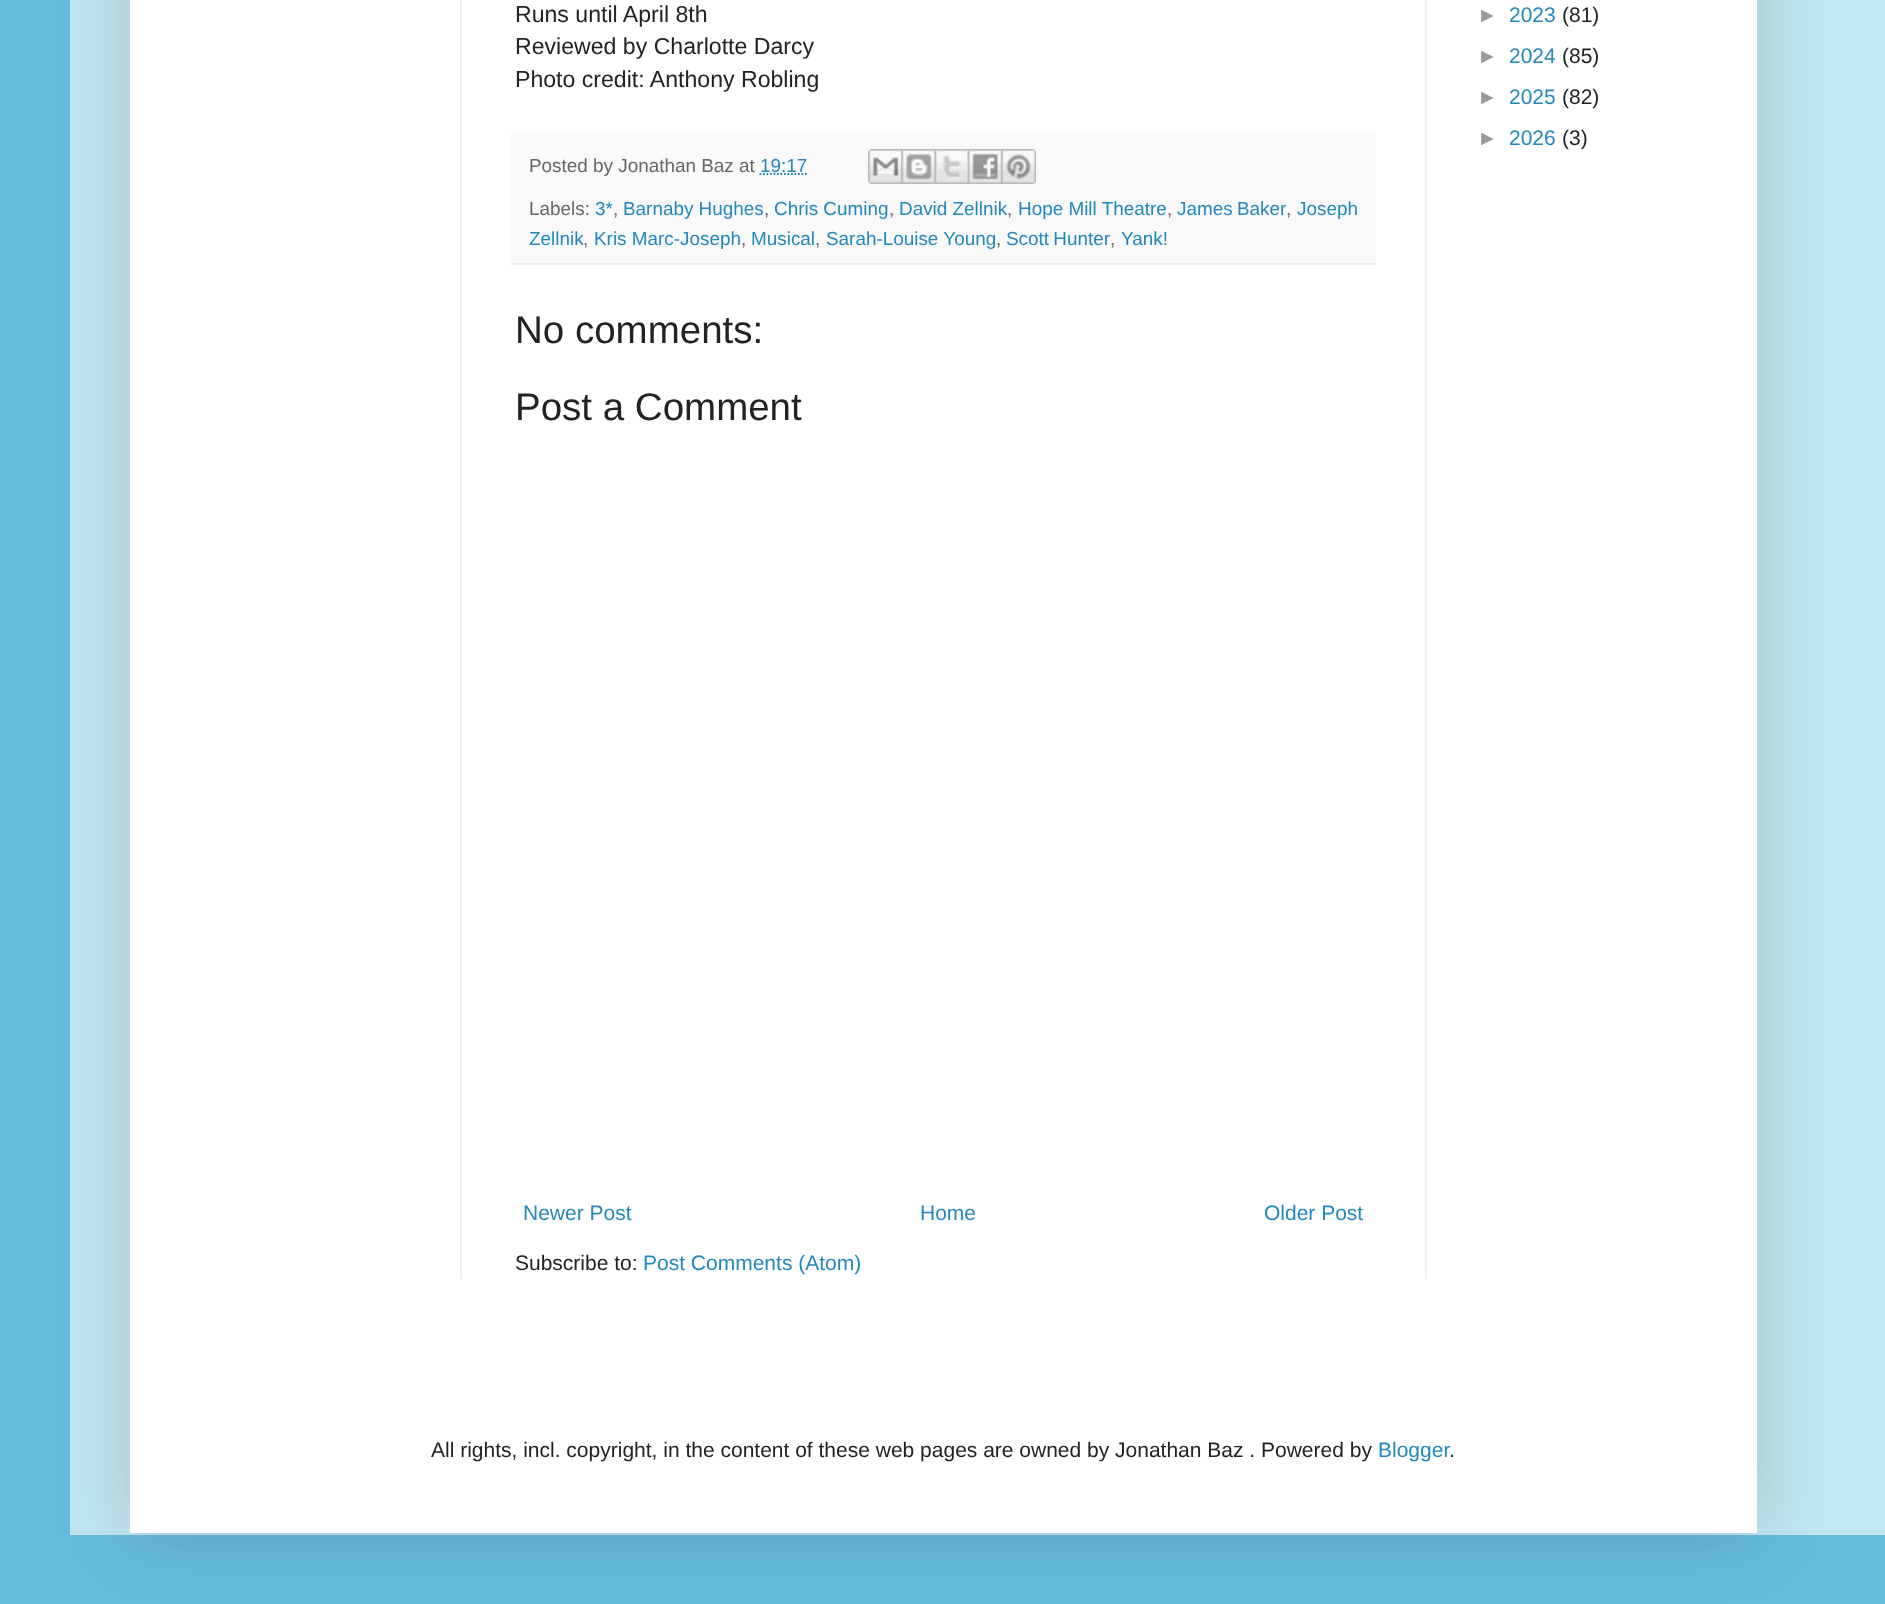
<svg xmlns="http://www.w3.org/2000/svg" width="1885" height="1604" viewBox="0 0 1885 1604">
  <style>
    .t1 { font: 23.1px Liberation Sans; fill: #222; }
    .t2 { font: 18.9px Liberation Sans; fill: #666; }
    .t3 { font: 18.9px Liberation Sans; fill: #28b; }
    .t4 { font: 38.5px Liberation Sans; fill: #222; }
    .t5 { font: 21px Liberation Sans; fill: #28b; }
    .t6 { font: 21px Liberation Sans; fill: #222; }
    .t7 { font: 21px Liberation Sans; fill: #999; }
  </style>
  <rect width="100%" height="100%" fill="#6bd"/>
  <rect x="70" y="0" width="1815" height="1535" fill="#c1e5f1"/>
  <rect x="130" y="-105" width="1627" height="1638" fill="#00000026" filter="blur(35px)"/>
  <rect x="130" y="0" width="1627" height="1533" fill="#fff"/>
  <rect x="460" y="0" width="2" height="1279" fill="#eee"/>
  <rect x="1425" y="0" width="2" height="1279" fill="#eee"/>
  <text x="515" y="22" class="t1">Runs until April 8th</text>
  <text x="515" y="54" class="t1">Reviewed by Charlotte Darcy</text>
  <text x="515" y="87" class="t1">Photo credit: Anthony Robling</text>
  <rect x="511" y="131" width="865" height="132" fill="#f9f9f9"/>
  <rect x="511" y="263" width="865" height="2" fill="#eee"/>
  <text x="529" y="172" class="t2">Posted by Jonathan Baz at</text>
  <text x="760" y="172" class="t3">19:17</text>
  <path d="M759.5 174H807" fill="none" stroke="#28b" stroke-width="1.8" stroke-dasharray="1.75 1.75"/>
  <image x="868" y="149" width="34" height="35" href="images/1.png"/>
  <image x="901" y="149" width="34" height="35" href="images/2.png"/>
  <image x="934" y="149" width="34" height="35" href="images/3.png"/>
  <image x="967" y="149" width="34" height="35" href="images/4.png"/>
  <image x="1001" y="149" width="35" height="35" href="images/5.png"/>
  <text x="529" y="215" class="t2">Labels:</text>
  <text x="595" y="215" class="t3">3*</text>
  <text x="613" y="215" class="t2">,</text>
  <text x="623" y="215" class="t3">Barnaby Hughes</text>
  <text x="764" y="215" class="t2">,</text>
  <text x="774" y="215" class="t3">Chris Cuming</text>
  <text x="889" y="215" class="t2">,</text>
  <text x="899" y="215" class="t3">David Zellnik</text>
  <text x="1007" y="215" class="t2">,</text>
  <text x="1018" y="215" class="t3">Hope Mill Theatre</text>
  <text x="1167" y="215" class="t2">,</text>
  <text x="1177" y="215" word-spacing="-1" class="t3">James Baker</text>
  <text x="1286" y="215" class="t2">,</text>
  <text x="1297" y="215" class="t3">Joseph</text>
  <text x="529" y="245" class="t3">Zellnik</text>
  <text x="583" y="245" class="t2">,</text>
  <text x="594" y="245" class="t3">Kris Marc-Joseph</text>
  <text x="741" y="245" class="t2">,</text>
  <text x="751" y="245" class="t3">Musical</text>
  <text x="815" y="245" class="t2">,</text>
  <text x="826" y="245" class="t3">Sarah-Louise Young</text>
  <text x="996" y="245" class="t2">,</text>
  <text x="1006" y="245" word-spacing="-1" class="t3">Scott Hunter</text>
  <text x="1110" y="245" class="t2">,</text>
  <text x="1121" y="245" class="t3">Yank!</text>
  <text x="515" y="343" class="t4">No comments:</text>
  <text x="515" y="420" class="t4">Post a Comment</text>
  <text x="523" y="1220" class="t5">Newer Post</text>
  <text x="920" y="1220" class="t5">Home</text>
  <text x="1264" y="1220" class="t5">Older Post</text>
  <text x="515" y="1270" class="t6">Subscribe to:</text>
  <text x="643" y="1270" class="t5">Post Comments (Atom)</text>
  <text x="1477" y="22" class="t7">►</text>
  <text x="1509" y="22" class="t5">2023</text>
  <text x="1562" y="22" class="t6">(81)</text>
  <text x="1477" y="63" class="t7">►</text>
  <text x="1509" y="63" class="t5">2024</text>
  <text x="1562" y="63" class="t6">(85)</text>
  <text x="1477" y="104" class="t7">►</text>
  <text x="1509" y="104" class="t5">2025</text>
  <text x="1562" y="104" class="t6">(82)</text>
  <text x="1477" y="145" class="t7">►</text>
  <text x="1509" y="145" class="t5">2026</text>
  <text x="1562" y="145" class="t6">(3)</text>
  <text x="431" y="1457" class="t6">All rights, incl. copyright, in the content of these web pages are owned by Jonathan Baz . Powered by</text>
  <text x="1378" y="1457" class="t5">Blogger</text>
  <text x="1449" y="1457" class="t6">.</text>
</svg>
